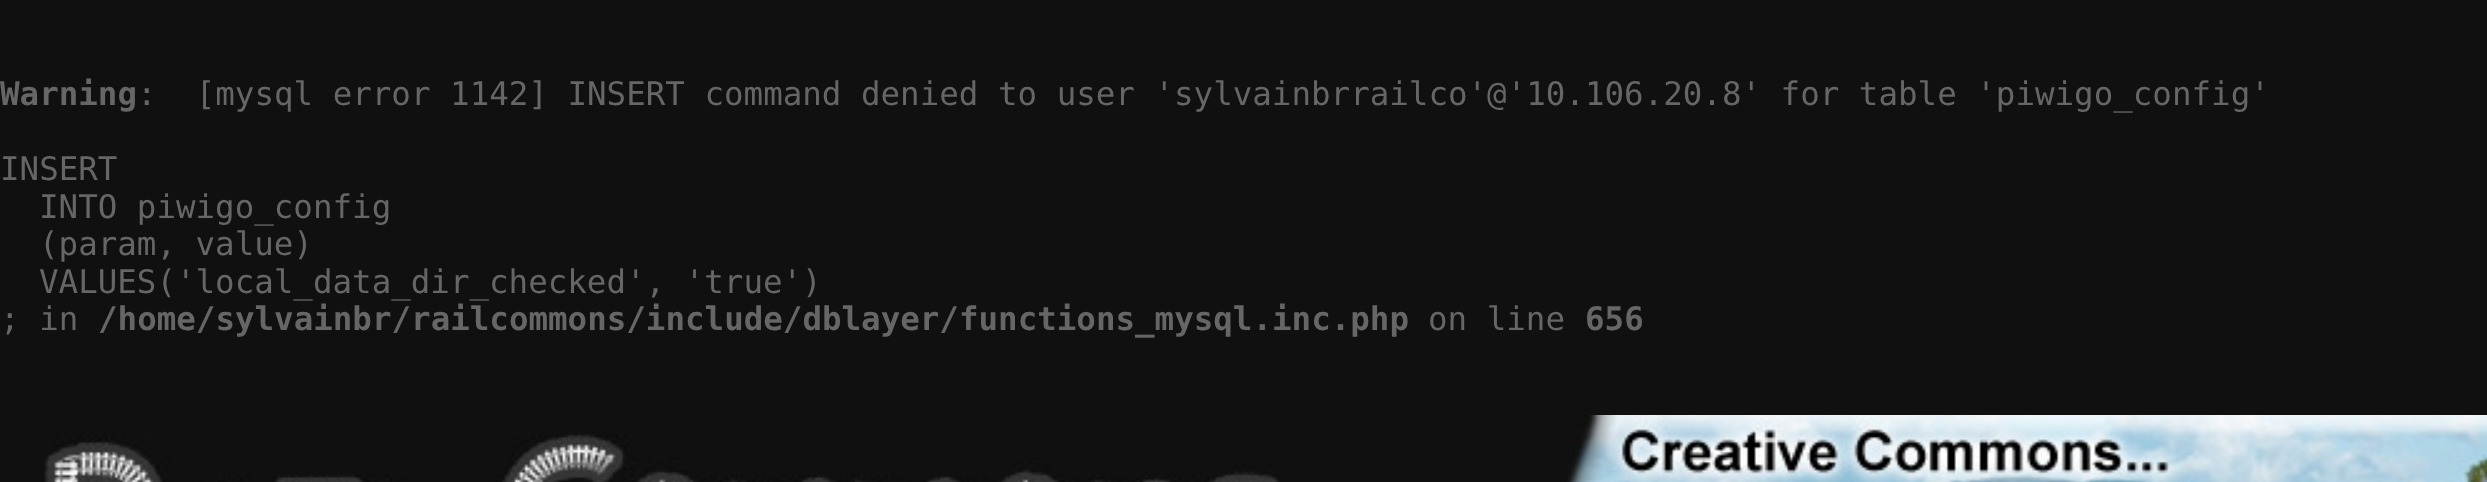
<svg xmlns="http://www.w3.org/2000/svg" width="2487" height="482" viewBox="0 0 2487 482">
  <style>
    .t1 { font: bold 32.5px DejaVu Sans Mono; fill: #666; }
    .t2 { font: 32.5px DejaVu Sans Mono; fill: #666; }
  </style>
  <rect width="100%" height="100%" fill="#101010"/>
  <text x="0" y="105" class="t1">Warning</text>
  <text x="137" y="105" class="t2" xml:space="preserve">:  [mysql error 1142] INSERT command denied to user 'sylvainbrrailco'@'10.106.20.8' for table 'piwigo_config'</text>
  <text x="0" y="180" class="t2">INSERT</text>
  <text x="39" y="218" class="t2">INTO piwigo_config</text>
  <text x="39" y="255" class="t2">(param, value)</text>
  <text x="39" y="293" class="t2">VALUES('local_data_dir_checked', 'true')</text>
  <text x="0" y="330" class="t2">; in</text>
  <text x="98" y="330" class="t1">/home/sylvainbr/railcommons/include/dblayer/functions_mysql.inc.php</text>
  <text x="1428" y="330" class="t2">on line</text>
  <text x="1585" y="330" class="t1">656</text>
  <image x="44" y="434" width="1236" height="48" href="images/1.png"/>
  <image x="1567" y="415" width="920" height="67" href="images/2.png"/>
</svg>
